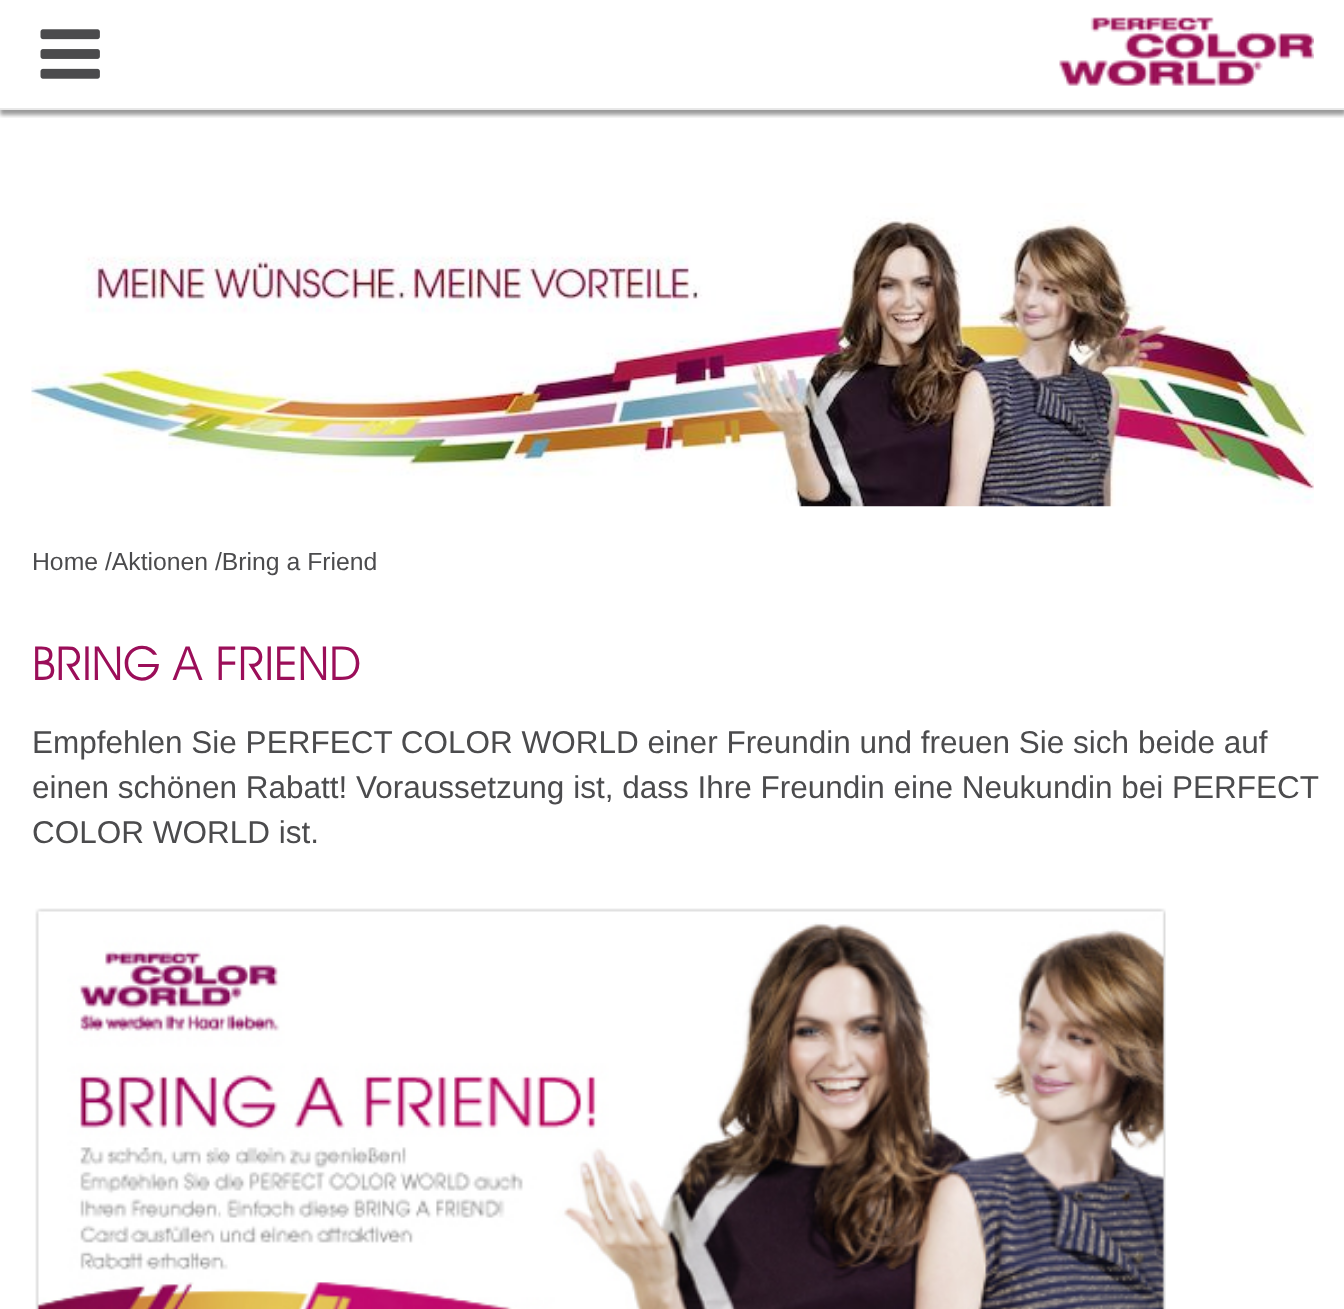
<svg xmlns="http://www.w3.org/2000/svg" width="1344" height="1309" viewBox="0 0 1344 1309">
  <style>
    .t1 { font: 24.75px Liberation Sans; fill: #4b4b4d; }
    .t2 { font: 47.25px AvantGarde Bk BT; fill: #9b0e59; }
    .t3 { font: 31.5px Liberation Sans; fill: #4b4b4d; }
  </style>
  <defs>
    <clipPath id="clip1"><rect x="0" y="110" width="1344" height="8"/></clipPath>
  </defs>
  <rect width="100%" height="100%" fill="#fff"/>
  <g clip-path="url(#clip1)">
    <rect x="0" y="5" width="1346" height="110" fill="#00000066" filter="blur(2px)"/>
  </g>
  <rect x="0" y="108" width="1344" height="2" fill="#e8e8e8"/>
  <image x="40" y="29" width="60" height="50" href="images/1.png"/>
  <image x="1059" y="17" width="255" height="69" href="images/2.png"/>
  <image x="31" y="203" width="1283" height="304" href="images/3.png"/>
  <text x="32" y="570" class="t1">Home /Aktionen /Bring a Friend</text>
  <text x="32" y="680" class="t2">BRING A FRIEND</text>
  <text x="32" y="753" class="t3">Empfehlen Sie PERFECT COLOR WORLD einer Freundin und freuen Sie sich beide auf</text>
  <text x="32" y="798" class="t3">einen schönen Rabatt! Voraussetzung ist, dass Ihre Freundin eine Neukundin bei PERFECT</text>
  <text x="32" y="843" class="t3">COLOR WORLD ist.</text>
  <image x="35" y="908" width="1131" height="401" href="images/4.png"/>
</svg>
